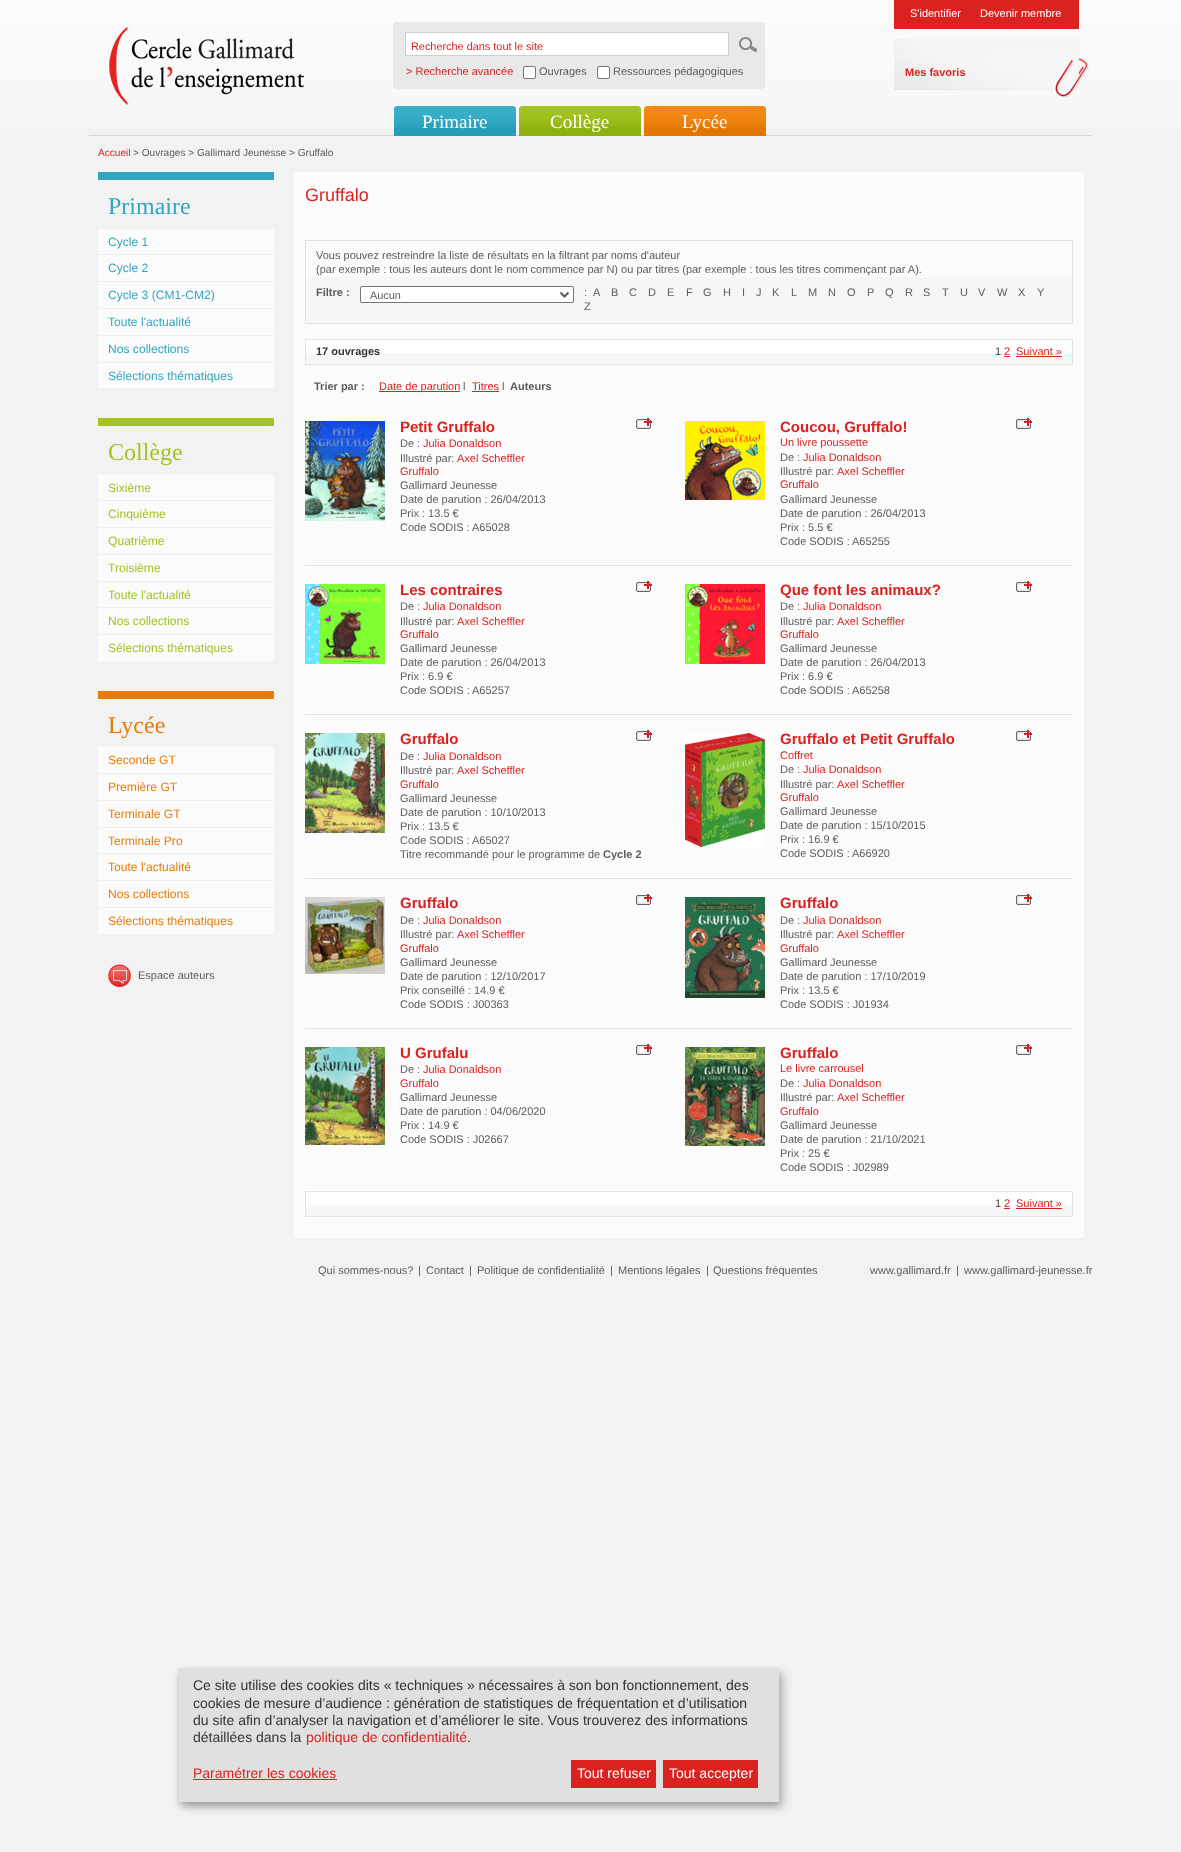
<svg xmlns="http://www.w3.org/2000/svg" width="1181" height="1852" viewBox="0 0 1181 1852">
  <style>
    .t1 { font: 10.9px Liberation Sans; fill: #da2321; }
    .t2 { font: 11px Liberation Sans; fill: #da2321; }
    .t3 { font: 11px Liberation Sans; fill: #5c5c5c; }
    .t4 { font: 11px Liberation Sans; fill: #fff; }
    .t5 { font: bold 11px Liberation Sans; fill: #e12221; }
    .t6 { font: 19px Liberation Serif; fill: #fff; }
    .t7 { font: 10.1px Liberation Sans; fill: #da2321; }
    .t8 { font: 10.1px Liberation Sans; fill: #5c5c5c; }
    .t9 { font: 24px Liberation Serif; fill: #31a6c0; }
    .t10 { font: 12.1px Liberation Sans; fill: #31a6c0; }
    .t11 { font: 24px Liberation Serif; fill: #a2c422; }
    .t12 { font: 12.1px Liberation Sans; fill: #a2c422; }
    .t13 { font: 24px Liberation Serif; fill: #e87c08; }
    .t14 { font: 12.1px Liberation Sans; fill: #e87c08; }
    .t15 { font: 18px Liberation Sans; fill: #da2321; }
    .t16 { font: bold 11px Liberation Sans; fill: #5c5c5c; }
    .t17 { font: 10.9px Liberation Sans; fill: #5c5c5c; }
    .t18 { font: bold 11px Liberation Sans; fill: #333; }
    .t19 { font: 11px Liberation Sans; fill: #333; }
    .t20 { font: bold 15px Liberation Sans; fill: #da2321; }
    .t21 { font: 14px Liberation Sans; fill: #333; }
    .t22 { font: 14px Liberation Sans; fill: #da2321; }
    .t23 { font: 14px Liberation Sans; fill: #fff; }
  </style>
  <rect width="100%" height="100%" fill="#f2f2f2"/>
  <image x="0" y="0" width="1181" height="128" href="images/1.png"/>
  <image x="109" y="27" width="195" height="78" href="images/2.png"/>
  <rect x="393" y="24" width="372" height="63" fill="#e9e9e9"/>
  <image x="393" y="22" width="372" height="2" href="images/3.png"/>
  <image x="393" y="87" width="372" height="2" href="images/4.png"/>
  <rect x="405.5" y="32.5" width="323" height="23" fill="#fff" stroke="#cfcfcf"/>
  <text x="411" y="50" class="t1">Recherche dans tout le site</text>
  <image x="739" y="37" width="18" height="15" href="images/5.png"/>
  <text x="406" y="75" class="t2">&gt; Recherche avancée</text>
  <rect x="523.5" y="66.5" width="12" height="12" rx="1.5" fill="#fff" stroke="#767676"/>
  <text x="539" y="75" class="t3">Ouvrages</text>
  <rect x="597.5" y="66.5" width="12" height="12" rx="1.5" fill="#fff" stroke="#767676"/>
  <text x="613" y="75" class="t3">Ressources pédagogiques</text>
  <rect x="894" y="0" width="185" height="29" fill="#da2321"/>
  <text x="910" y="17" class="t4">S'identifier</text>
  <text x="980" y="17" class="t4">Devenir membre</text>
  <image x="894" y="39" width="195" height="59" href="images/6.png"/>
  <text x="905" y="76" class="t5">Mes favoris</text>
  <rect x="89" y="135" width="1003" height="1" fill="#d7d7d7"/>
  <rect x="394" y="127" width="122" height="9" fill="#279cb6"/>
  <image x="394" y="106" width="122" height="21" href="images/7.png"/>
  <text x="422" y="128" class="t6">Primaire</text>
  <rect x="519" y="127" width="122" height="9" fill="#8fb10f"/>
  <image x="519" y="106" width="122" height="21" href="images/8.png"/>
  <text x="550" y="128" class="t6">Collège</text>
  <rect x="644" y="127" width="122" height="9" fill="#e27602"/>
  <image x="644" y="106" width="122" height="21" href="images/9.png"/>
  <text x="682" y="128" class="t6">Lycée</text>
  <text x="98" y="156" class="t7">Accueil</text>
  <text x="133" y="156" class="t8">&gt; Ouvrages &gt; Gallimard Jeunesse &gt; Gruffalo</text>
  <rect x="98" y="172" width="176" height="8" fill="#31a6c0"/>
  <text x="108" y="214" class="t9">Primaire</text>
  <rect x="98" y="229" width="176" height="159" fill="#fbfbfb"/>
  <text x="108" y="246" class="t10">Cycle 1</text>
  <rect x="98" y="254" width="176" height="1" fill="#eee"/>
  <text x="108" y="272" class="t10">Cycle 2</text>
  <rect x="98" y="281" width="176" height="1" fill="#eee"/>
  <text x="108" y="299" class="t10">Cycle 3 (CM1-CM2)</text>
  <rect x="98" y="308" width="176" height="1" fill="#eee"/>
  <text x="108" y="326" class="t10">Toute l'actualité</text>
  <rect x="98" y="335" width="176" height="1" fill="#eee"/>
  <text x="108" y="353" class="t10">Nos collections</text>
  <rect x="98" y="362" width="176" height="1" fill="#eee"/>
  <text x="108" y="380" class="t10">Sélections thématiques</text>
  <rect x="98" y="418" width="176" height="8" fill="#a2c422"/>
  <text x="108" y="460" class="t11">Collège</text>
  <rect x="98" y="475" width="176" height="186" fill="#fbfbfb"/>
  <text x="108" y="492" class="t12">Sixième</text>
  <rect x="98" y="500" width="176" height="1" fill="#eee"/>
  <text x="108" y="518" class="t12">Cinquième</text>
  <rect x="98" y="527" width="176" height="1" fill="#eee"/>
  <text x="108" y="545" class="t12">Quatrième</text>
  <rect x="98" y="554" width="176" height="1" fill="#eee"/>
  <text x="108" y="572" class="t12">Troisième</text>
  <rect x="98" y="581" width="176" height="1" fill="#eee"/>
  <text x="108" y="599" class="t12">Toute l'actualité</text>
  <rect x="98" y="607" width="176" height="1" fill="#eee"/>
  <text x="108" y="625" class="t12">Nos collections</text>
  <rect x="98" y="634" width="176" height="1" fill="#eee"/>
  <text x="108" y="652" class="t12">Sélections thématiques</text>
  <rect x="98" y="691" width="176" height="8" fill="#e87c08"/>
  <text x="108" y="733" class="t13">Lycée</text>
  <rect x="98" y="747" width="176" height="187" fill="#fbfbfb"/>
  <text x="108" y="764" class="t14">Seconde GT</text>
  <rect x="98" y="773" width="176" height="1" fill="#eee"/>
  <text x="108" y="791" class="t14">Première GT</text>
  <rect x="98" y="800" width="176" height="1" fill="#eee"/>
  <text x="108" y="818" class="t14">Terminale GT</text>
  <rect x="98" y="827" width="176" height="1" fill="#eee"/>
  <text x="108" y="845" class="t14">Terminale Pro</text>
  <rect x="98" y="853" width="176" height="1" fill="#eee"/>
  <text x="108" y="871" class="t14">Toute l'actualité</text>
  <rect x="98" y="880" width="176" height="1" fill="#eee"/>
  <text x="108" y="898" class="t14">Nos collections</text>
  <rect x="98" y="907" width="176" height="1" fill="#eee"/>
  <text x="108" y="925" class="t14">Sélections thématiques</text>
  <image x="108" y="964" width="23" height="23" href="images/10.png"/>
  <text x="138" y="979" class="t3">Espace auteurs</text>
  <rect x="294" y="172" width="790" height="1066" fill="#fbfbfb"/>
  <text x="305" y="201" class="t15">Gruffalo</text>
  <rect x="306" y="277" width="766" height="46" fill="#f6f6f6"/>
  <rect x="305.5" y="240.5" width="767" height="83" fill="none" stroke="#e2e2e2"/>
  <text x="316" y="259" class="t3">Vous pouvez restreindre la liste de résultats en la filtrant par noms d'auteur</text>
  <text x="316" y="273" class="t3">(par exemple : tous les auteurs dont le nom commence par N) ou par titres (par exemple : tous les titres commençant par A).</text>
  <text x="316" y="296" class="t16">Filtre :</text>
  <text x="593" y="296" class="t3">A</text>
  <text x="611" y="296" class="t3">B</text>
  <text x="629" y="296" class="t3">C</text>
  <text x="648" y="296" class="t3">D</text>
  <text x="667" y="296" class="t3">E</text>
  <text x="686" y="296" class="t3">F</text>
  <text x="703" y="296" class="t3">G</text>
  <text x="723" y="296" class="t3">H</text>
  <text x="742" y="296" class="t3">I</text>
  <text x="756" y="296" class="t3">J</text>
  <text x="772" y="296" class="t3">K</text>
  <text x="791" y="296" class="t3">L</text>
  <text x="808" y="296" class="t3">M</text>
  <text x="828" y="296" class="t3">N</text>
  <text x="847" y="296" class="t3">O</text>
  <text x="867" y="296" class="t3">P</text>
  <text x="885" y="296" class="t3">Q</text>
  <text x="905" y="296" class="t3">R</text>
  <text x="923" y="296" class="t3">S</text>
  <text x="942" y="296" class="t3">T</text>
  <text x="960" y="296" class="t3">U</text>
  <text x="978" y="296" class="t3">V</text>
  <text x="997" y="296" class="t3">W</text>
  <text x="1018" y="296" class="t3">X</text>
  <text x="1037" y="296" class="t3">Y</text>
  <text x="584" y="310" class="t3">Z</text>
  <rect x="360.5" y="286.5" width="213" height="16" rx="1.5" fill="#fff" stroke="#767676"/>
  <path d="M560.5 292.5L564.5 296.5L568.5 292.5" fill="none" stroke="#5c5c5c" stroke-width="2"/>
  <text x="370" y="299" class="t17">Aucun</text>
  <text x="584" y="296" class="t3">:</text>
  <rect x="306" y="340" width="766" height="13" fill="#fefefe"/>
  <rect x="306" y="353" width="766" height="11" fill="#f7f7f7"/>
  <rect x="305.5" y="339.5" width="767" height="25" fill="none" stroke="#e4e4e4"/>
  <text x="316" y="355" class="t18">17 ouvrages</text>
  <text x="995" y="355" class="t19">1</text>
  <text x="1004" y="355" class="t2">2</text>
  <rect x="1004" y="356" width="6" height="1" fill="#da2321"/>
  <text x="1016" y="355" class="t2">Suivant »</text>
  <rect x="1016" y="356" width="46" height="1" fill="#da2321"/>
  <text x="314" y="390" class="t16">Trier par :</text>
  <rect x="379" y="391" width="81" height="1" fill="#da2321"/>
  <text x="379" y="390" class="t2">Date de parution</text>
  <text x="463" y="390" class="t3">l</text>
  <text x="472" y="390" class="t2">Titres</text>
  <rect x="472" y="391" width="27" height="1" fill="#da2321"/>
  <text x="502" y="390" class="t3">l</text>
  <text x="510" y="390" class="t16">Auteurs</text>
  <image x="305" y="421" width="80" height="100" href="images/11.png"/>
  <text x="400" y="432" class="t20">Petit Gruffalo</text>
  <image x="636" y="418" width="16" height="11" href="images/12.png"/>
  <text x="400" y="447" class="t3">De :</text>
  <text x="423" y="447" class="t2">Julia Donaldson</text>
  <text x="400" y="462" class="t3">Illustré par:</text>
  <text x="457" y="462" class="t2">Axel Scheffler</text>
  <text x="400" y="475" class="t2">Gruffalo</text>
  <text x="400" y="489" class="t3">Gallimard Jeunesse</text>
  <text x="400" y="503" class="t3">Date de parution : 26/04/2013</text>
  <text x="400" y="517" class="t3">Prix : 13.5 €</text>
  <text x="400" y="531" class="t3">Code SODIS :</text>
  <text x="472" y="531" class="t3">A65028</text>
  <image x="685" y="421" width="80" height="79" href="images/13.png"/>
  <text x="780" y="432" class="t20">Coucou, Gruffalo!</text>
  <image x="1016" y="418" width="16" height="11" href="images/12.png"/>
  <text x="780" y="446" class="t2">Un livre poussette</text>
  <text x="780" y="461" class="t3">De :</text>
  <text x="803" y="461" class="t2">Julia Donaldson</text>
  <text x="780" y="475" class="t3">Illustré par:</text>
  <text x="837" y="475" class="t2">Axel Scheffler</text>
  <text x="780" y="488" class="t2">Gruffalo</text>
  <text x="780" y="503" class="t3">Gallimard Jeunesse</text>
  <text x="780" y="517" class="t3">Date de parution : 26/04/2013</text>
  <text x="780" y="531" class="t3">Prix : 5.5 €</text>
  <text x="780" y="545" class="t3">Code SODIS :</text>
  <text x="852" y="545" class="t3">A65255</text>
  <rect x="305" y="565" width="768" height="1" fill="#e3e3e3"/>
  <image x="305" y="584" width="80" height="80" href="images/14.png"/>
  <text x="400" y="595" class="t20">Les contraires</text>
  <image x="636" y="581" width="16" height="11" href="images/12.png"/>
  <text x="400" y="610" class="t3">De :</text>
  <text x="423" y="610" class="t2">Julia Donaldson</text>
  <text x="400" y="625" class="t3">Illustré par:</text>
  <text x="457" y="625" class="t2">Axel Scheffler</text>
  <text x="400" y="638" class="t2">Gruffalo</text>
  <text x="400" y="652" class="t3">Gallimard Jeunesse</text>
  <text x="400" y="666" class="t3">Date de parution : 26/04/2013</text>
  <text x="400" y="680" class="t3">Prix : 6.9 €</text>
  <text x="400" y="694" class="t3">Code SODIS :</text>
  <text x="472" y="694" class="t3">A65257</text>
  <image x="685" y="584" width="80" height="80" href="images/15.png"/>
  <text x="780" y="595" class="t20">Que font les animaux?</text>
  <image x="1016" y="581" width="16" height="11" href="images/12.png"/>
  <text x="780" y="610" class="t3">De :</text>
  <text x="803" y="610" class="t2">Julia Donaldson</text>
  <text x="780" y="625" class="t3">Illustré par:</text>
  <text x="837" y="625" class="t2">Axel Scheffler</text>
  <text x="780" y="638" class="t2">Gruffalo</text>
  <text x="780" y="652" class="t3">Gallimard Jeunesse</text>
  <text x="780" y="666" class="t3">Date de parution : 26/04/2013</text>
  <text x="780" y="680" class="t3">Prix : 6.9 €</text>
  <text x="780" y="694" class="t3">Code SODIS :</text>
  <text x="852" y="694" class="t3">A65258</text>
  <rect x="305" y="714" width="768" height="1" fill="#e3e3e3"/>
  <image x="305" y="733" width="80" height="100" href="images/16.png"/>
  <text x="400" y="744" class="t20">Gruffalo</text>
  <image x="636" y="730" width="16" height="11" href="images/12.png"/>
  <text x="400" y="760" class="t3">De :</text>
  <text x="423" y="760" class="t2">Julia Donaldson</text>
  <text x="400" y="774" class="t3">Illustré par:</text>
  <text x="457" y="774" class="t2">Axel Scheffler</text>
  <text x="400" y="788" class="t2">Gruffalo</text>
  <text x="400" y="802" class="t3">Gallimard Jeunesse</text>
  <text x="400" y="816" class="t3">Date de parution : 10/10/2013</text>
  <text x="400" y="830" class="t3">Prix : 13.5 €</text>
  <text x="400" y="844" class="t3">Code SODIS :</text>
  <text x="472" y="844" class="t3">A65027</text>
  <text x="400" y="858" class="t3">Titre recommandé pour le programme de</text>
  <text x="603" y="858" class="t16">Cycle 2</text>
  <image x="685" y="733" width="80" height="114" href="images/17.png"/>
  <text x="780" y="744" class="t20">Gruffalo et Petit Gruffalo</text>
  <image x="1016" y="730" width="16" height="11" href="images/12.png"/>
  <text x="780" y="759" class="t2">Coffret</text>
  <text x="780" y="773" class="t3">De :</text>
  <text x="803" y="773" class="t2">Julia Donaldson</text>
  <text x="780" y="788" class="t3">Illustré par:</text>
  <text x="837" y="788" class="t2">Axel Scheffler</text>
  <text x="780" y="801" class="t2">Gruffalo</text>
  <text x="780" y="815" class="t3">Gallimard Jeunesse</text>
  <text x="780" y="829" class="t3">Date de parution : 15/10/2015</text>
  <text x="780" y="843" class="t3">Prix : 16.9 €</text>
  <text x="780" y="857" class="t3">Code SODIS :</text>
  <text x="852" y="857" class="t3">A66920</text>
  <rect x="305" y="878" width="768" height="1" fill="#e3e3e3"/>
  <image x="305" y="897" width="80" height="77" href="images/18.png"/>
  <text x="400" y="908" class="t20">Gruffalo</text>
  <image x="636" y="894" width="16" height="11" href="images/12.png"/>
  <text x="400" y="924" class="t3">De :</text>
  <text x="423" y="924" class="t2">Julia Donaldson</text>
  <text x="400" y="938" class="t3">Illustré par:</text>
  <text x="457" y="938" class="t2">Axel Scheffler</text>
  <text x="400" y="952" class="t2">Gruffalo</text>
  <text x="400" y="966" class="t3">Gallimard Jeunesse</text>
  <text x="400" y="980" class="t3">Date de parution : 12/10/2017</text>
  <text x="400" y="994" class="t3">Prix conseillé : 14.9 €</text>
  <text x="400" y="1008" class="t3">Code SODIS : J00363</text>
  <image x="685" y="897" width="80" height="101" href="images/19.png"/>
  <text x="780" y="908" class="t20">Gruffalo</text>
  <image x="1016" y="894" width="16" height="11" href="images/12.png"/>
  <text x="780" y="924" class="t3">De :</text>
  <text x="803" y="924" class="t2">Julia Donaldson</text>
  <text x="780" y="938" class="t3">Illustré par:</text>
  <text x="837" y="938" class="t2">Axel Scheffler</text>
  <text x="780" y="952" class="t2">Gruffalo</text>
  <text x="780" y="966" class="t3">Gallimard Jeunesse</text>
  <text x="780" y="980" class="t3">Date de parution : 17/10/2019</text>
  <text x="780" y="994" class="t3">Prix : 13.5 €</text>
  <text x="780" y="1008" class="t3">Code SODIS : J01934</text>
  <rect x="305" y="1028" width="768" height="1" fill="#e3e3e3"/>
  <image x="305" y="1047" width="80" height="98" href="images/20.png"/>
  <text x="400" y="1058" class="t20">U Grufalu</text>
  <image x="636" y="1044" width="16" height="11" href="images/12.png"/>
  <text x="400" y="1073" class="t3">De :</text>
  <text x="423" y="1073" class="t2">Julia Donaldson</text>
  <text x="400" y="1087" class="t2">Gruffalo</text>
  <text x="400" y="1101" class="t3">Gallimard Jeunesse</text>
  <text x="400" y="1115" class="t3">Date de parution : 04/06/2020</text>
  <text x="400" y="1129" class="t3">Prix : 14.9 €</text>
  <text x="400" y="1143" class="t3">Code SODIS : J02667</text>
  <image x="685" y="1047" width="80" height="99" href="images/21.png"/>
  <text x="780" y="1058" class="t20">Gruffalo</text>
  <image x="1016" y="1044" width="16" height="11" href="images/12.png"/>
  <text x="780" y="1072" class="t2">Le livre carrousel</text>
  <text x="780" y="1087" class="t3">De :</text>
  <text x="803" y="1087" class="t2">Julia Donaldson</text>
  <text x="780" y="1101" class="t3">Illustré par:</text>
  <text x="837" y="1101" class="t2">Axel Scheffler</text>
  <text x="780" y="1115" class="t2">Gruffalo</text>
  <text x="780" y="1129" class="t3">Gallimard Jeunesse</text>
  <text x="780" y="1143" class="t3">Date de parution : 21/10/2021</text>
  <text x="780" y="1157" class="t3">Prix : 25 €</text>
  <text x="780" y="1171" class="t3">Code SODIS : J02989</text>
  <rect x="306" y="1192" width="766" height="13" fill="#fefefe"/>
  <rect x="306" y="1205" width="766" height="11" fill="#f7f7f7"/>
  <rect x="305.5" y="1191.5" width="767" height="25" fill="none" stroke="#e4e4e4"/>
  <text x="995" y="1207" class="t19">1</text>
  <text x="1004" y="1207" class="t2">2</text>
  <rect x="1004" y="1208" width="6" height="1" fill="#da2321"/>
  <text x="1016" y="1207" class="t2">Suivant »</text>
  <rect x="1016" y="1208" width="46" height="1" fill="#da2321"/>
  <text x="318" y="1274" class="t3">Qui sommes-nous?</text>
  <text x="418" y="1274" class="t3">|</text>
  <text x="426" y="1274" class="t3">Contact</text>
  <text x="469" y="1274" class="t3">|</text>
  <text x="477" y="1274" class="t3">Politique de confidentialité</text>
  <text x="610" y="1274" class="t3">|</text>
  <text x="618" y="1274" class="t3">Mentions légales</text>
  <text x="706" y="1274" class="t3">|</text>
  <text x="713" y="1274" class="t3">Questions fréquentes</text>
  <text x="870" y="1274" class="t3">www.gallimard.fr</text>
  <text x="956" y="1274" class="t3">|</text>
  <text x="964" y="1274" class="t3">www.gallimard-jeunesse.fr</text>
  <rect x="184" y="1673" width="600" height="134" fill="#00000030" filter="blur(5px)"/>
  <rect x="179" y="1672" width="600" height="134" fill="#00000033" filter="blur(3px)"/>
  <rect x="179" y="1668" width="600" height="134" fill="#e0e0e0"/>
  <text x="193" y="1690" class="t21">Ce site utilise des cookies dits « techniques » nécessaires à son bon fonctionnement, des</text>
  <text x="193" y="1708" class="t21">cookies de mesure d’audience : génération de statistiques de fréquentation et d’utilisation</text>
  <text x="193" y="1725" class="t21">du site afin d’analyser la navigation et d’améliorer le site. Vous trouverez des informations</text>
  <text x="193" y="1742" class="t21">détaillées dans la</text>
  <text x="306" y="1742" class="t22">politique de confidentialité</text>
  <text x="467" y="1742" class="t21">.</text>
  <text x="193" y="1778" class="t22">Paramétrer les cookies</text>
  <rect x="193" y="1779" width="144" height="1" fill="#da2321"/>
  <rect x="571" y="1760" width="85" height="28" fill="#da2321"/>
  <text x="577" y="1778" class="t23">Tout refuser</text>
  <rect x="663" y="1760" width="95" height="28" fill="#da2321"/>
  <text x="669" y="1778" class="t23">Tout accepter</text>
</svg>
